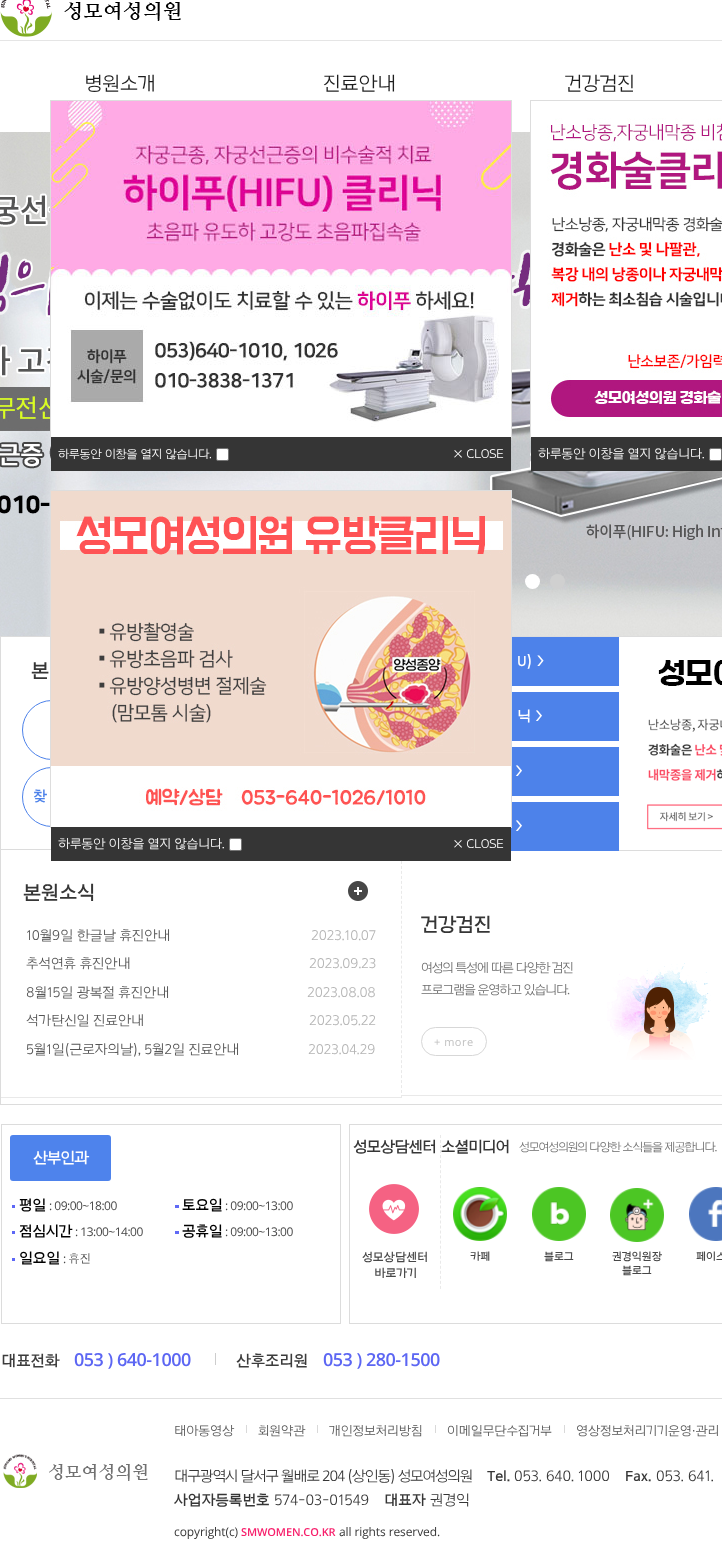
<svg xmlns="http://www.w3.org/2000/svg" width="722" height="1541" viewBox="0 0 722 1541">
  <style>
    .t1 { font: 500 20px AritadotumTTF; letter-spacing: -0.1px; fill: #1e1e1e; }
    .t2 { font: 600 20px AritadotumTTF; letter-spacing: -0.1px; fill: #363636; }
    .t3 { font: 600 15px AritadotumTTF; letter-spacing: -0.1px; fill: #4d82ea; }
    .t4 { font: 600 15px AritadotumTTF; letter-spacing: -0.1px; fill: #fff; }
    .t5 { font: 500 14px AritadotumTTF; letter-spacing: -0.1px; fill: #555; }
    .t6 { font: 500 14px AritadotumTTF; letter-spacing: -0.1px; fill: #b5b5b5; }
    .t7 { font: 500 13px AritadotumTTF; letter-spacing: -1px; fill: #6e6e6e; }
    .t8 { font: 11px Open Sans; letter-spacing: 0.5px; fill: #c1c1c1; }
    .t9 { font: 600 16px AritadotumTTF; letter-spacing: -1px; fill: #fff; }
    .t10 { font: 600 15px AritadotumTTF; letter-spacing: -0.1px; fill: #000; }
    .t11 { font: 12px Open Sans; letter-spacing: -0.5px; fill: #484848; }
    .t12 { font: 12px Dotum; letter-spacing: -0.5px; fill: #484848; }
    .t13 { font: 600 16px AritadotumTTF; letter-spacing: -1px; fill: #363636; }
    .t14 { font: 600 12px AritadotumTTF; letter-spacing: -0.1px; fill: #484848; }
    .t15 { font: 500 12px AritadotumTTF; letter-spacing: -1px; fill: #6e6e6e; }
    .t16 { font: 600 11px AritadotumTTF; letter-spacing: -0.1px; fill: #484848; }
    .t17 { font: 600 16px AritadotumTTF; letter-spacing: -0.1px; fill: #3c3c3c; }
    .t18 { font: 600 18px Open Sans; letter-spacing: -0.5px; fill: #5c66f3; }
    .t19 { font: 500 13px AritadotumTTF; letter-spacing: -0.1px; fill: #555; }
    .t20 { font: 500 15px AritadotumTTF; letter-spacing: -1px; fill: #363636; }
    .t21 { font: 600 15px AritadotumTTF; letter-spacing: -0.1px; fill: #363636; }
    .t22 { font: 500 15px AritadotumTTF; letter-spacing: -0.1px; fill: #363636; }
    .t23 { font: 12px Open Sans; letter-spacing: -0.1px; fill: #363636; }
    .t24 { font: 600 11px Open Sans; letter-spacing: -0.1px; fill: #f71f6b; }
    .t25 { font: 500 12px AritadotumTTF; letter-spacing: -0.1px; fill: #fff; }
    .t26 { font: 500 13px AritadotumTTF; letter-spacing: -0.1px; fill: #fff; }
  </style>
  <rect width="100%" height="100%" fill="#fff"/>
  <image x="0" y="0" width="181" height="37" href="images/1.png"/>
  <rect x="0" y="40" width="722" height="1" fill="#e5e5e5"/>
  <text x="84" y="90" class="t1">병원소개</text>
  <text x="323" y="90" class="t1">진료안내</text>
  <text x="565" y="90" class="t1">건강검진</text>
  <image x="0" y="132" width="722" height="504" href="images/2.png"/>
  <circle cx="532.5" cy="581.5" r="7.5" fill="#fff"/>
  <circle cx="557.5" cy="581.5" r="7.5" fill="#d0d0d0"/>
  <rect x="0.5" y="636.5" width="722" height="468" fill="none" stroke="#dcdcdc"/>
  <rect x="1" y="849" width="50" height="1" fill="#dcdcdc"/>
  <text x="31" y="677" class="t2">본</text>
  <rect x="22.5" y="700.5" width="101" height="59" rx="29.5" fill="none" stroke="#4d82ea"/>
  <rect x="22.5" y="767.5" width="101" height="59" rx="29.5" fill="none" stroke="#4d82ea"/>
  <text x="33" y="801" class="t3">찾</text>
  <rect x="512" y="637" width="107" height="49" fill="#4d82ea"/>
  <text x="517" y="666" class="t4">U) &gt;</text>
  <rect x="512" y="692" width="107" height="49" fill="#4d82ea"/>
  <text x="517" y="721" class="t4">닉 &gt;</text>
  <rect x="512" y="747" width="107" height="49" fill="#4d82ea"/>
  <text x="515" y="776" class="t4">&gt;</text>
  <rect x="511" y="802" width="108" height="49" fill="#4d82ea"/>
  <text x="515" y="831" class="t4">&gt;</text>
  <rect x="619" y="850" width="103" height="1" fill="#dcdcdc"/>
  <image x="619" y="637" width="103" height="212" href="images/3.png"/>
  <path d="M401.5 851V1098" fill="none" stroke="#e9e9e9" stroke-dasharray="3 1.98"/>
  <rect x="1" y="1097" width="401" height="1" fill="#e9e9e9"/>
  <text x="23" y="899" class="t2">본원소식</text>
  <image x="348" y="881" width="20" height="20" href="images/4.png"/>
  <text x="26" y="940" class="t5">10월9일 한글날 휴진안내</text>
  <text x="311" y="940" class="t6">2023.10.07</text>
  <text x="26" y="968" class="t5">추석연휴 휴진안내</text>
  <text x="309" y="968" class="t6">2023.09.23</text>
  <text x="26" y="997" class="t5">8월15일 광복절 휴진안내</text>
  <text x="307" y="997" class="t6">2023.08.08</text>
  <text x="26" y="1025" class="t5">석가탄신일 진료안내</text>
  <text x="309" y="1025" class="t6">2023.05.22</text>
  <text x="26" y="1054" class="t5">5월1일(근로자의날), 5월2일 진료안내</text>
  <text x="308" y="1054" class="t6">2023.04.29</text>
  <rect x="402" y="1095" width="320" height="1" fill="#e9e9e9"/>
  <image x="607" y="963" width="104" height="97" href="images/5.png"/>
  <text x="421" y="931" class="t2">건강검진</text>
  <text x="421" y="972" class="t7">여성의 특성에 따른 다양한 검진</text>
  <text x="421" y="994" class="t7">프로그램을 운영하고 있습니다.</text>
  <rect x="421.5" y="1027.5" width="65" height="28" rx="14" fill="none" stroke="#d7d7d7"/>
  <text x="434" y="1046" class="t8">+ more</text>
  <rect x="1.5" y="1124.5" width="339" height="199" fill="none" stroke="#dcdcdc"/>
  <rect x="10" y="1135" width="101" height="46" rx="3" fill="#4e83ec"/>
  <text x="33" y="1163" class="t9">산부인과</text>
  <rect x="12" y="1205" width="3" height="3" fill="#5d67f6"/>
  <text x="19" y="1210" class="t10">평일</text>
  <text x="49" y="1210" class="t11">: 09:00~18:00</text>
  <rect x="175" y="1205" width="4" height="3" fill="#606af6"/>
  <text x="182" y="1210" class="t10">토요일</text>
  <text x="225" y="1210" class="t11">: 09:00~13:00</text>
  <rect x="12" y="1231" width="3" height="3" fill="#5d67f6"/>
  <text x="19" y="1236" class="t10">점심시간</text>
  <text x="75" y="1236" class="t11">: 13:00~14:00</text>
  <rect x="175" y="1231" width="4" height="3" fill="#606af6"/>
  <text x="182" y="1236" class="t10">공휴일</text>
  <text x="225" y="1236" class="t11">: 09:00~13:00</text>
  <rect x="12" y="1258" width="3" height="3" fill="#5d67f6"/>
  <text x="19" y="1263" class="t10">일요일</text>
  <text x="63" y="1263" class="t11">:</text>
  <text x="68" y="1263" class="t12">휴진</text>
  <rect x="349.5" y="1124.5" width="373" height="199" fill="none" stroke="#dcdcdc"/>
  <path d="M440.5 1135V1289" fill="none" stroke="#e9e9e9" stroke-dasharray="3 2.03"/>
  <text x="353" y="1152" class="t13">성모상담센터</text>
  <image x="369" y="1184" width="50" height="50" href="images/6.png"/>
  <text x="362" y="1261" class="t14">성모상담센터</text>
  <text x="374" y="1277" class="t14">바로가기</text>
  <text x="441" y="1152" class="t13">소셜미디어</text>
  <text x="519" y="1151" class="t15">성모여성의원의 다양한 소식들을 제공합니다.</text>
  <image x="453" y="1187" width="54" height="54" href="images/7.png"/>
  <text x="470" y="1260" class="t16">카페</text>
  <image x="532" y="1187" width="54" height="54" href="images/8.png"/>
  <text x="544" y="1260" class="t16">블로그</text>
  <image x="610" y="1188" width="54" height="54" href="images/9.png"/>
  <text x="612" y="1260" class="t16">권경익원장</text>
  <text x="622" y="1274" class="t16">블로그</text>
  <image x="689" y="1187" width="33" height="54" href="images/10.png"/>
  <text x="696" y="1260" class="t16">페이스</text>
  <rect x="215" y="1353" width="1" height="12" fill="#cdcdcd"/>
  <text x="1" y="1366" class="t17">대표전화</text>
  <text x="74" y="1366" class="t18">053 ) 640-1000</text>
  <text x="236" y="1366" class="t17">산후조리원</text>
  <text x="323" y="1366" class="t18">053 ) 280-1500</text>
  <rect x="0" y="1398" width="722" height="1" fill="#e0e0e0"/>
  <image x="3" y="1454" width="145" height="34" href="images/11.png"/>
  <text x="174" y="1435" class="t19">태아동영상</text>
  <rect x="246" y="1425" width="1" height="8" fill="#d9d9d9"/>
  <text x="258" y="1435" class="t19">회원약관</text>
  <rect x="317" y="1425" width="1" height="8" fill="#d9d9d9"/>
  <text x="329" y="1435" class="t19">개인정보처리방침</text>
  <rect x="435" y="1425" width="1" height="8" fill="#d9d9d9"/>
  <text x="447" y="1435" class="t19">이메일무단수집거부</text>
  <rect x="564" y="1425" width="1" height="8" fill="#d9d9d9"/>
  <text x="576" y="1435" class="t19">영상정보처리기기운영·관리</text>
  <text x="174" y="1481" class="t20">대구광역시 달서구 월배로 204 (상인동) 성모여성의원</text>
  <text x="487" y="1481" class="t21">Tel.</text>
  <text x="514" y="1481" class="t22">053. 640. 1000</text>
  <text x="625" y="1481" class="t21">Fax.</text>
  <text x="656" y="1481" class="t22">053. 641.</text>
  <text x="174" y="1505" class="t21">사업자등록번호</text>
  <text x="274" y="1505" class="t22">574-03-01549</text>
  <text x="384" y="1505" class="t21">대표자</text>
  <text x="430" y="1505" class="t22">권경익</text>
  <text x="174" y="1536" class="t23">copyright(c)</text>
  <text x="241" y="1536" class="t24">SMWOMEN.CO.KR</text>
  <text x="339" y="1536" class="t23">all rights reserved.</text>
  <rect x="50.5" y="100.5" width="461" height="337" fill="none" stroke="#ddd"/>
  <image x="51" y="101" width="460" height="336" href="images/12.png"/>
  <rect x="51" y="437" width="460" height="34" fill="#353535"/>
  <text x="58" y="458" class="t25">하루동안 이창을 열지 않습니다.</text>
  <rect x="216.5" y="448.5" width="12" height="12" rx="1.5" fill="#fff" stroke="#767676"/>
  <text x="453" y="458" class="t26">× CLOSE</text>
  <rect x="530.5" y="100.5" width="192" height="337" fill="none" stroke="#ddd"/>
  <image x="531" y="118" width="191" height="319" href="images/13.png"/>
  <rect x="531" y="437" width="191" height="34" fill="#353535"/>
  <text x="538" y="458" class="t26">하루동안 이창을 열지 않습니다.</text>
  <rect x="709.5" y="448.5" width="12" height="12" rx="1.5" fill="#fff" stroke="#767676"/>
  <rect x="50.5" y="490.5" width="461" height="337" fill="none" stroke="#ddd"/>
  <image x="51" y="491" width="460" height="336" href="images/14.png"/>
  <rect x="51" y="827" width="460" height="34" fill="#353535"/>
  <text x="58" y="848" class="t26">하루동안 이창을 열지 않습니다.</text>
  <rect x="229.5" y="838.5" width="12" height="12" rx="1.5" fill="#fff" stroke="#767676"/>
  <text x="453" y="848" class="t26">× CLOSE</text>
</svg>
